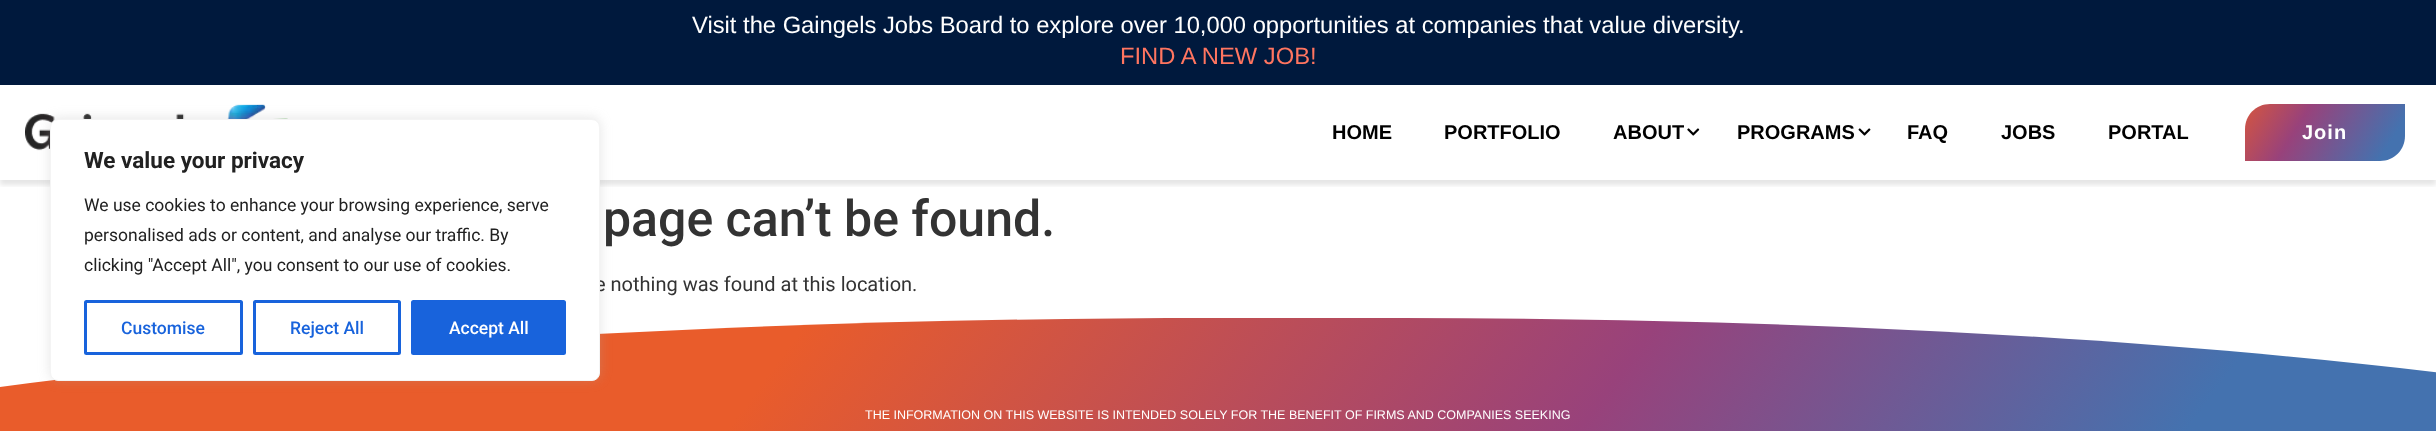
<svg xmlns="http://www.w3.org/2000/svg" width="2436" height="431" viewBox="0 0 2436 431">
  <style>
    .t1 { font: 23.75px Liberation Sans; fill: #fff; }
    .t2 { font: 23.75px Liberation Sans; fill: #ff7560; }
    .t3 { font: bold 20px Liberation Sans; fill: #000; }
    .t4 { font: bold 20px Liberation Sans; letter-spacing: 1px; fill: #fff; }
    .t5 { font: 20px Roboto; fill: #333; }
    .t6 { font: bold 22.5px Roboto; fill: #212121; }
    .t7 { font: 17.5px Roboto; fill: #212121; }
    .t8 { font: 500 17.5px Roboto; fill: #1863dc; }
    .t9 { font: 500 17.5px Roboto; fill: #fff; }
    .t10 { font: 500 50px Roboto; fill: #333; }
    .t11 { font: 12.5px Liberation Sans; fill: #fff; }
  </style>
  <defs>
    <clipPath id="clip1"><rect x="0" y="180" width="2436" height="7"/></clipPath>
    <linearGradient id="g1" gradientUnits="userSpaceOnUse" x1="2237" y1="79" x2="2396" y2="176"><stop offset="0" stop-color="#e95c2b"/><stop offset="0.41" stop-color="#98427b"/><stop offset="0.88" stop-color="#4472af"/></linearGradient>
    <linearGradient id="g2" gradientUnits="userSpaceOnUse" x1="-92" y1="-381" x2="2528" y2="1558"><stop offset="0.35" stop-color="#e95c2b"/><stop offset="0.56" stop-color="#98427b"/><stop offset="0.71" stop-color="#4472af"/></linearGradient>
  </defs>
  <rect width="100%" height="100%" fill="#fff"/>
  <rect x="0" y="0" width="2436" height="85" fill="#00193d"/>
  <text x="692" y="33" class="t1">Visit the Gaingels Jobs Board to explore over 10,000 opportunities at companies that value diversity.</text>
  <text x="1120" y="64" class="t2">FIND A NEW JOB!</text>
  <g clip-path="url(#clip1)">
    <rect x="0" y="90" width="2436" height="95" fill="#0000001a" filter="blur(2.5px)"/>
  </g>
  <image x="25" y="104" width="263" height="47" href="images/1.png"/>
  <text x="1332" y="139" class="t3">HOME</text>
  <text x="1444" y="139" class="t3">PORTFOLIO</text>
  <text x="1613" y="139" class="t3">ABOUT</text>
  <image x="1687" y="128" width="13" height="8" href="images/2.png"/>
  <text x="1737" y="139" class="t3">PROGRAMS</text>
  <image x="1858" y="128" width="13" height="8" href="images/3.png"/>
  <text x="1907" y="139" class="t3">FAQ</text>
  <text x="2001" y="139" class="t3">JOBS</text>
  <text x="2108" y="139" class="t3">PORTAL</text>
  <path d="M2270 104H2405V136C2405 150 2394 161 2380 161H2245V129C2245 115 2256 104 2270 104Z" fill="url(#g1)"/>
  <text x="2302" y="139" class="t4">Join</text>
  <path d="M1218 318H1401C2309 318 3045 427 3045 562V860H-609V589C-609 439 209 318 1218 318Z" fill="url(#g2)"/>
  <rect x="50" y="118" width="550" height="262" rx="8" fill="#acabab4d" filter="blur(6px)"/>
  <text x="595" y="291" class="t5">e nothing was found at this location.</text>
  <rect x="50.5" y="119.5" width="549" height="261" rx="7.5" fill="#fff" stroke="#f4f4f4"/>
  <text x="84" y="168" class="t6">We value your privacy</text>
  <text x="84" y="211" class="t7">We use cookies to enhance your browsing experience, serve</text>
  <text x="84" y="241" class="t7">personalised ads or content, and analyse our traffic. By</text>
  <text x="84" y="271" class="t7">clicking "Accept All", you consent to our use of cookies.</text>
  <rect x="85.5" y="301.5" width="156" height="52" rx="1" fill="none" stroke="#1863dc" stroke-width="3"/>
  <text x="121" y="334" class="t8">Customise</text>
  <rect x="254.5" y="301.5" width="145" height="52" rx="1" fill="none" stroke="#1863dc" stroke-width="3"/>
  <text x="290" y="334" class="t8">Reject All</text>
  <rect x="412.5" y="301.5" width="152" height="52" rx="1" fill="#1863dc" stroke="#1863dc" stroke-width="3"/>
  <text x="449" y="334" class="t9">Accept All</text>
  <text x="603" y="236" class="t10">page can’t be found.</text>
  <text x="865" y="419" class="t11">THE INFORMATION ON THIS WEBSITE IS INTENDED SOLELY FOR THE BENEFIT OF FIRMS AND COMPANIES SEEKING</text>
</svg>
